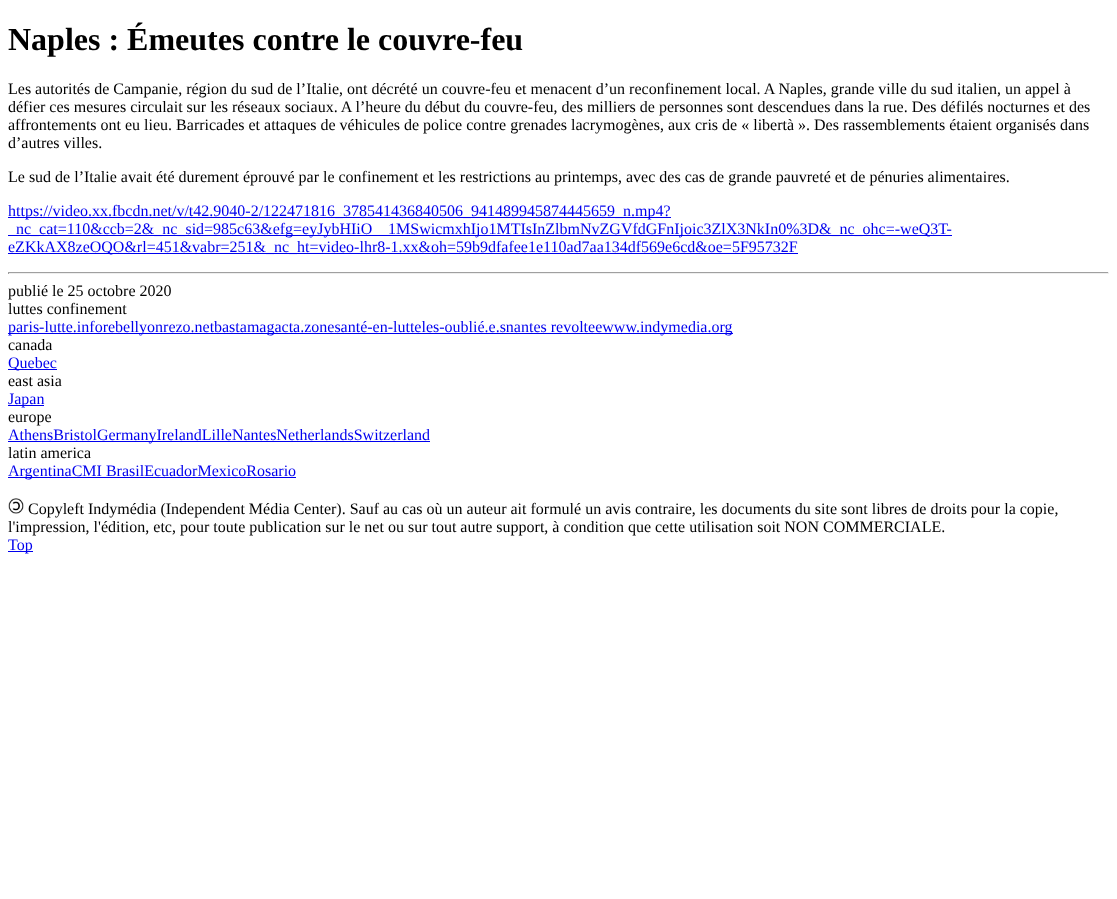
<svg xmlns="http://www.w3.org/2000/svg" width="1117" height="899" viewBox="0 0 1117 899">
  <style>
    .t1 { font: bold 32px Liberation Serif; fill: #000; }
    .t2 { font: 16px Liberation Serif; fill: #000; }
    .t3 { font: 16px Liberation Serif; fill: #00e; }
  </style>
  <rect width="100%" height="100%" fill="#fff"/>
  <text x="8" y="50" class="t1">Naples : Émeutes contre le couvre-feu</text>
  <text x="8" y="94" class="t2">Les autorités de Campanie, région du sud de l’Italie, ont décrété un couvre-feu et menacent d’un reconfinement local. A Naples, grande ville du sud italien, un appel à</text>
  <text x="8" y="112" class="t2">défier ces mesures circulait sur les réseaux sociaux. A l’heure du début du couvre-feu, des milliers de personnes sont descendues dans la rue. Des défilés nocturnes et des</text>
  <text x="8" y="130" class="t2">affrontements ont eu lieu. Barricades et attaques de véhicules de police contre grenades lacrymogènes, aux cris de « libertà ». Des rassemblements étaient organisés dans</text>
  <text x="8" y="148" class="t2">d’autres villes.</text>
  <text x="8" y="182" class="t2">Le sud de l’Italie avait été durement éprouvé par le confinement et les restrictions au printemps, avec des cas de grande pauvreté et de pénuries alimentaires.</text>
  <rect x="8" y="217" width="663" height="1" fill="#00e"/>
  <text x="8" y="216" class="t3">https://video.xx.fbcdn.net/v/t42.9040-2/122471816_378541436840506_941489945874445659_n.mp4?</text>
  <rect x="8" y="235" width="944" height="1" fill="#00e"/>
  <text x="16" y="234" class="t3">nc_cat=110&amp;ccb=2&amp;_nc_sid=985c63&amp;efg=eyJybHIiO</text>
  <text x="388" y="234" class="t3">1MSwicmxhIjo1MTIsInZlbmNvZGVfdGFnIjoic3ZlX3NkIn0%3D&amp;_nc_ohc=-weQ3T-</text>
  <rect x="8" y="253" width="790" height="1" fill="#00e"/>
  <text x="8" y="252" class="t3">eZKkAX8zeOQO&amp;rl=451&amp;vabr=251&amp;_nc_ht=video-lhr8-1.xx&amp;oh=59b9dfafee1e110ad7aa134df569e6cd&amp;oe=5F95732F</text>
  <rect x="8" y="272" width="1101" height="1" fill="#9f9f9f"/>
  <rect x="1108" y="272" width="1" height="2" fill="#eee"/>
  <rect x="8" y="273" width="1101" height="1" fill="#eee"/>
  <rect x="8" y="272" width="1" height="2" fill="#9f9f9f"/>
  <text x="8" y="296" class="t2">publié le 25 octobre 2020</text>
  <text x="8" y="314" class="t2">luttes confinement</text>
  <rect x="8" y="333" width="206" height="1" fill="#00e"/>
  <text x="8" y="332" class="t3">paris-lutte.inforebellyonrezo.net</text>
  <rect x="214" y="333" width="519" height="1" fill="#00e"/>
  <text x="214" y="332" class="t3">bastamagacta.zonesanté-en-lutteles-oublié.e.snantes revolteewww.indymedia.org</text>
  <text x="8" y="350" class="t2">canada</text>
  <rect x="8" y="369" width="49" height="1" fill="#00e"/>
  <text x="8" y="368" class="t3">Quebec</text>
  <text x="8" y="386" class="t2">east asia</text>
  <rect x="8" y="405" width="36" height="1" fill="#00e"/>
  <text x="8" y="404" class="t3">Japan</text>
  <text x="8" y="422" class="t2">europe</text>
  <rect x="8" y="441" width="148" height="1" fill="#00e"/>
  <text x="8" y="440" class="t3">AthensBristolGermanyIrelandLilleNantesNetherlandsSwitzerland</text>
  <rect x="156" y="441" width="274" height="1" fill="#00e"/>
  <text x="8" y="458" class="t2">latin america</text>
  <rect x="8" y="477" width="189" height="1" fill="#00e"/>
  <text x="8" y="476" class="t3">ArgentinaCMI BrasilEcuadorMexicoRosario</text>
  <rect x="197" y="477" width="99" height="1" fill="#00e"/>
  <image x="8" y="498" width="16" height="16" href="images/1.png"/>
  <text x="28" y="514" class="t2">Copyleft Indymédia (Independent Média Center). Sauf au cas où un auteur ait formulé un avis contraire, les documents du site sont libres de droits pour la copie,</text>
  <text x="8" y="532" class="t2">l'impression, l'édition, etc, pour toute publication sur le net ou sur tout autre support, à condition que cette utilisation soit NON COMMERCIALE.</text>
  <rect x="8" y="551" width="25" height="1" fill="#00e"/>
  <text x="8" y="550" class="t3">Top</text>
</svg>
